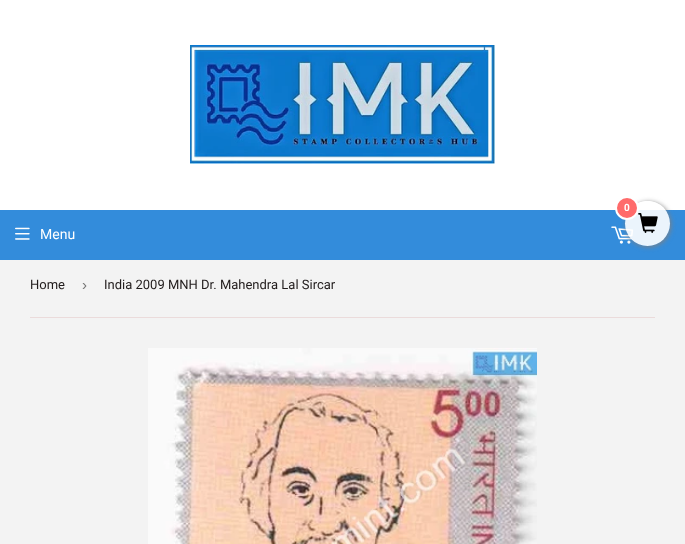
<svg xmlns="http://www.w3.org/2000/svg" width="685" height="544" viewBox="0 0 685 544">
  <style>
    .t1 { font: bold 10px Roboto; fill: #fff; }
    .t2 { font: 14px Roboto; fill: #fff; }
    .t3 { font: 13px Roboto; fill: #211c1c; }
    .t4 { font: 15px Liberation Sans; fill: #767676; }
  </style>
  <defs>
    <clipPath id="clip1"><path d="M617 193H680V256H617ZM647.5 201C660 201 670 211 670 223.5C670 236 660 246 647.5 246C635 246 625 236 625 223.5C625 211 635 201 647.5 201Z" clip-rule="evenodd"/></clipPath>
  </defs>
  <rect width="100%" height="100%" fill="#f3f3f3"/>
  <rect x="0" y="0" width="685" height="210" fill="#fff"/>
  <rect x="0" y="210" width="685" height="50" fill="#338cdb"/>
  <image x="611" y="226" width="23" height="18" href="images/4.png"/>
  <g clip-path="url(#clip1)">
    <rect x="626" y="202" width="45" height="45" rx="22.5" fill="#808080" filter="blur(2.5px)"/>
  </g>
  <circle cx="647.5" cy="223.5" r="22.5" fill="#ffffffe6"/>
  <image x="638" y="213" width="20" height="20" href="images/1.png"/>
  <circle cx="627" cy="208" r="11" fill="#ff6b6b" stroke="#fff" stroke-width="2"/>
  <text x="624" y="211" class="t1">0</text>
  <image x="190" y="45" width="305" height="119" href="images/2.png"/>
  <image x="15" y="227" width="15" height="13" href="images/3.png"/>
  <text x="40" y="239" class="t2">Menu</text>
  <rect x="30" y="317" width="625" height="1" fill="#ebdbdb"/>
  <text x="30" y="289" class="t3">Home</text>
  <text x="82" y="290" class="t4">›</text>
  <text x="104" y="289" class="t3">India 2009 MNH Dr. Mahendra Lal Sircar</text>
  <image x="148" y="348" width="389" height="196" href="images/5.png"/>
</svg>
